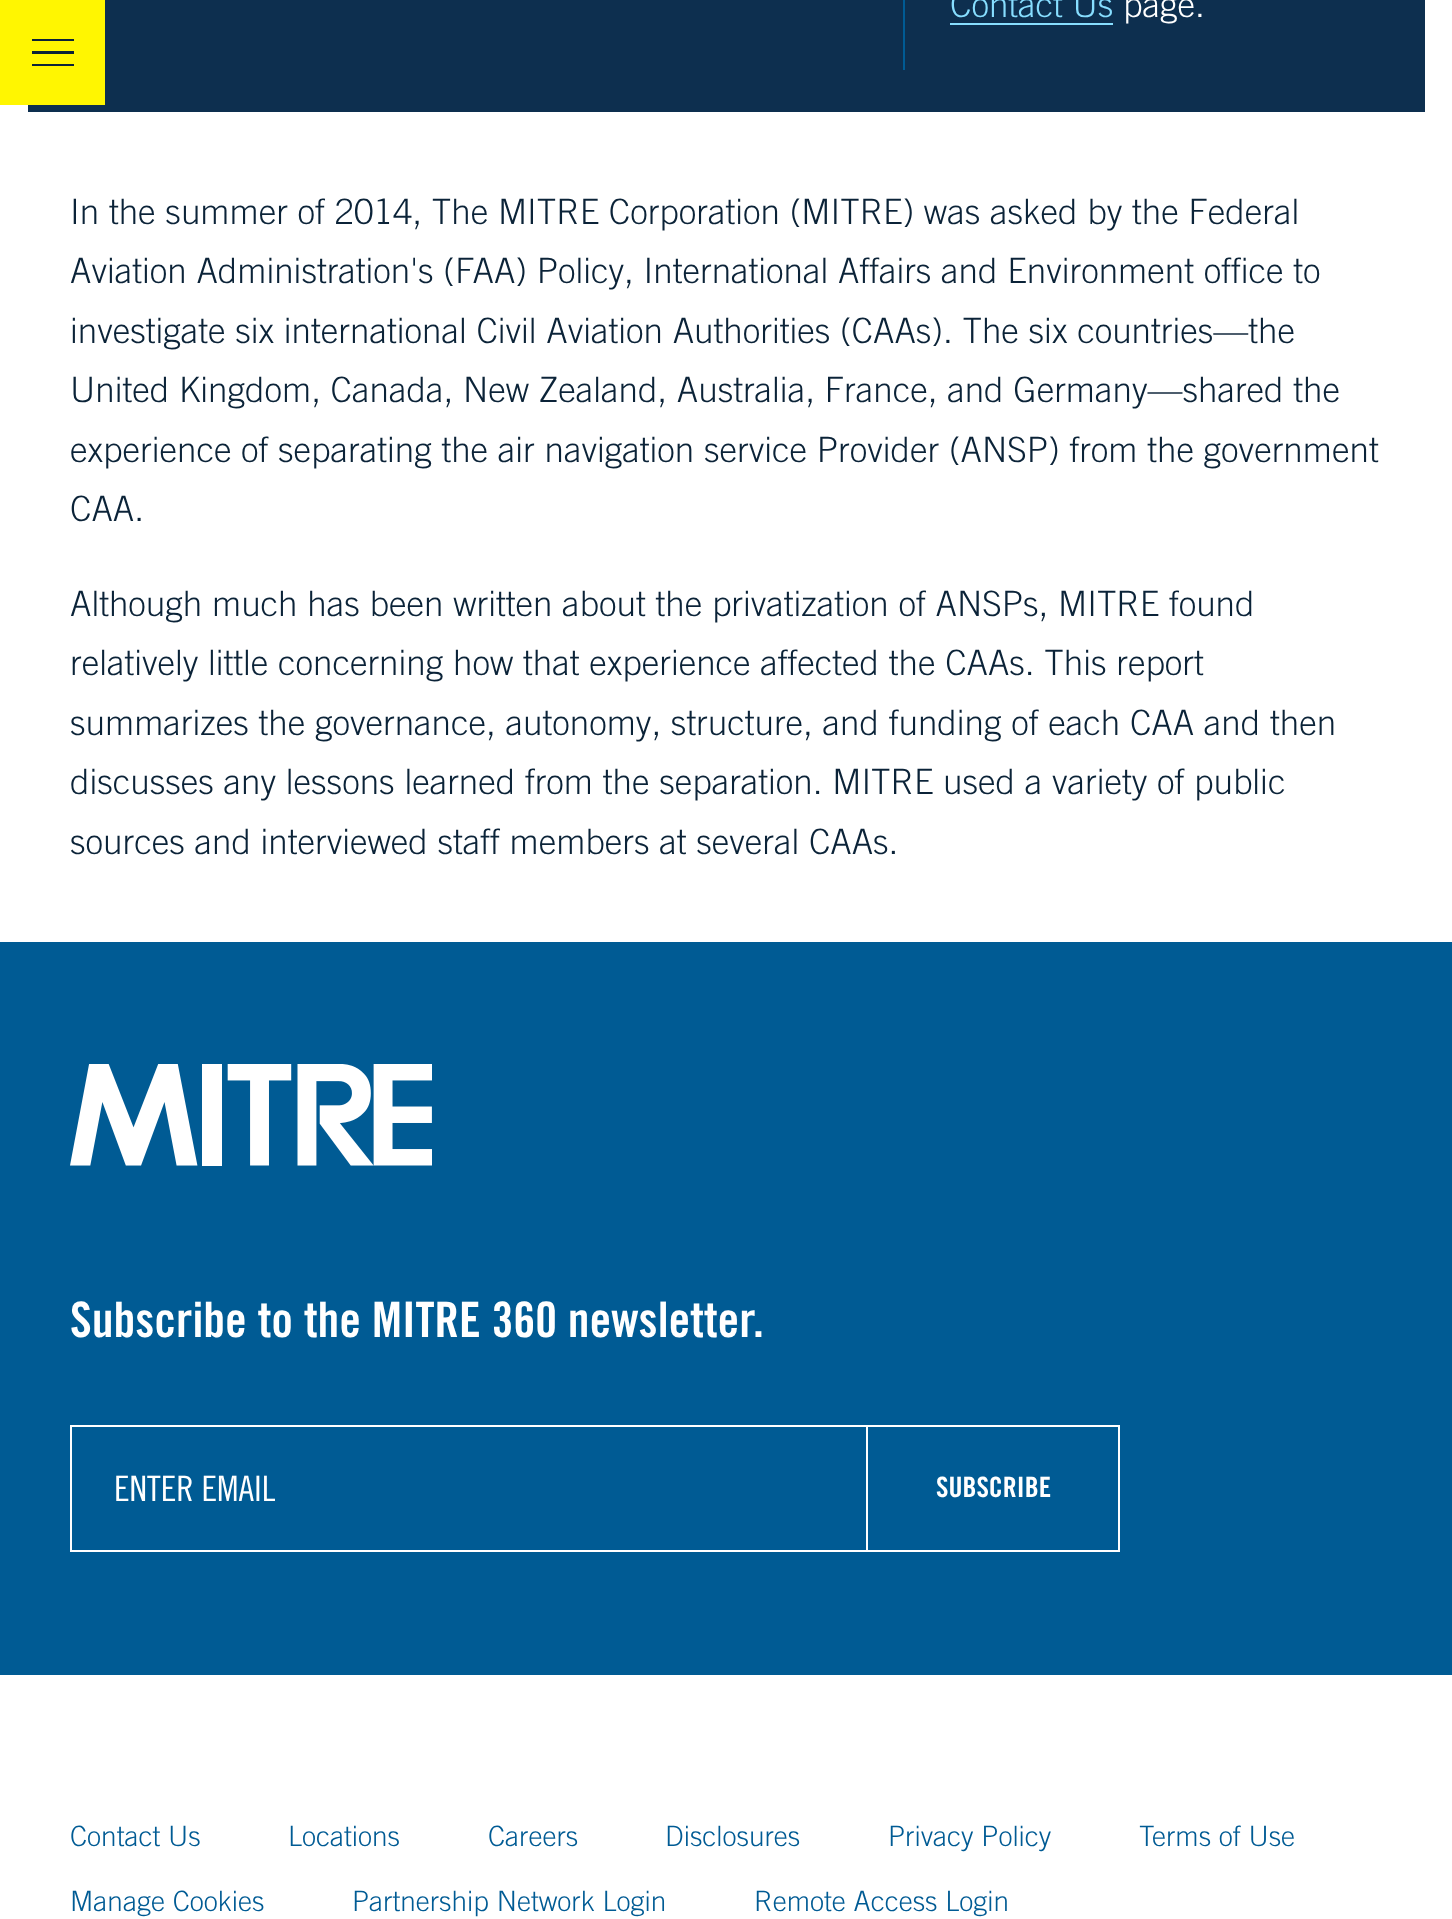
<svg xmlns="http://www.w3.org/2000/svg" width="1452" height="1919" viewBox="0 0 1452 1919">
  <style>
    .t1 { font: 300 35px Trade Gothic; fill: #87deff; }
    .t2 { font: 300 35px Trade Gothic; fill: #fff; }
    .t3 { font: 300 35px Trade Gothic; fill: #0b2338; }
    .t4 { font: bold 49px Trade Gothic; fill: #fff; }
    .t5 { font: 35px Trade Gothic; fill: #fff; }
    .t6 { font: bold 28px Trade Gothic; fill: #fff; }
    .t7 { font: 300 28px Trade Gothic; fill: #005b94; }
  </style>
  <rect width="100%" height="100%" fill="#fff"/>
  <rect x="28" y="0" width="1397" height="112" fill="#0d2f4f"/>
  <rect x="0" y="0" width="105" height="105" fill="#fff601"/>
  <rect x="32" y="64" width="42" height="2" fill="#0b2338"/>
  <rect x="32" y="51" width="42" height="3" fill="#0b2338"/>
  <rect x="32" y="39" width="42" height="2" fill="#0b2338"/>
  <rect x="903" y="0" width="2" height="70" fill="#005b94"/>
  <text x="950" y="17" class="t1">Contact Us</text>
  <rect x="950" y="23" width="163" height="2" fill="#87deff"/>
  <text x="1123" y="17" class="t2">page.</text>
  <text x="70" y="224" class="t3">In the summer of 2014, The MITRE Corporation (MITRE) was asked by the Federal</text>
  <text x="70" y="283" class="t3">Aviation Administration's (FAA) Policy, International Affairs and Environment office to</text>
  <text x="70" y="343" class="t3">investigate six international Civil Aviation Authorities (CAAs). The six countries—the</text>
  <text x="70" y="402" class="t3">United Kingdom, Canada, New Zealand, Australia, France, and Germany—shared the</text>
  <text x="70" y="462" class="t3">experience of separating the air navigation service Provider (ANSP) from the government</text>
  <text x="70" y="521" class="t3">CAA.</text>
  <text x="70" y="616" class="t3">Although much has been written about the privatization of ANSPs, MITRE found</text>
  <text x="70" y="675" class="t3">relatively little concerning how that experience affected the CAAs. This report</text>
  <text x="70" y="735" class="t3">summarizes the governance, autonomy, structure, and funding of each CAA and then</text>
  <text x="70" y="794" class="t3">discusses any lessons learned from the separation. MITRE used a variety of public</text>
  <text x="70" y="854" class="t3">sources and interviewed staff members at several CAAs.</text>
  <rect x="0" y="942" width="1452" height="733" fill="#005b94"/>
  <image x="70" y="1064" width="362" height="102" href="images/1.png"/>
  <text x="70" y="1337" class="t4">Subscribe to the MITRE 360 newsletter.</text>
  <rect x="71" y="1426" width="796" height="125" fill="none" stroke="#fff" stroke-width="2"/>
  <text x="114" y="1501" class="t5">ENTER EMAIL</text>
  <rect x="867" y="1426" width="252" height="125" fill="none" stroke="#fff" stroke-width="2"/>
  <text x="936" y="1497" class="t6">SUBSCRIBE</text>
  <text x="70" y="1846" class="t7">Contact Us</text>
  <text x="288" y="1846" class="t7">Locations</text>
  <text x="488" y="1846" class="t7">Careers</text>
  <text x="665" y="1846" class="t7">Disclosures</text>
  <text x="888" y="1846" class="t7">Privacy Policy</text>
  <text x="1139" y="1846" class="t7">Terms of Use</text>
  <text x="70" y="1911" class="t7">Manage Cookies</text>
  <text x="352" y="1911" class="t7">Partnership Network Login</text>
  <text x="754" y="1911" class="t7">Remote Access Login</text>
</svg>
